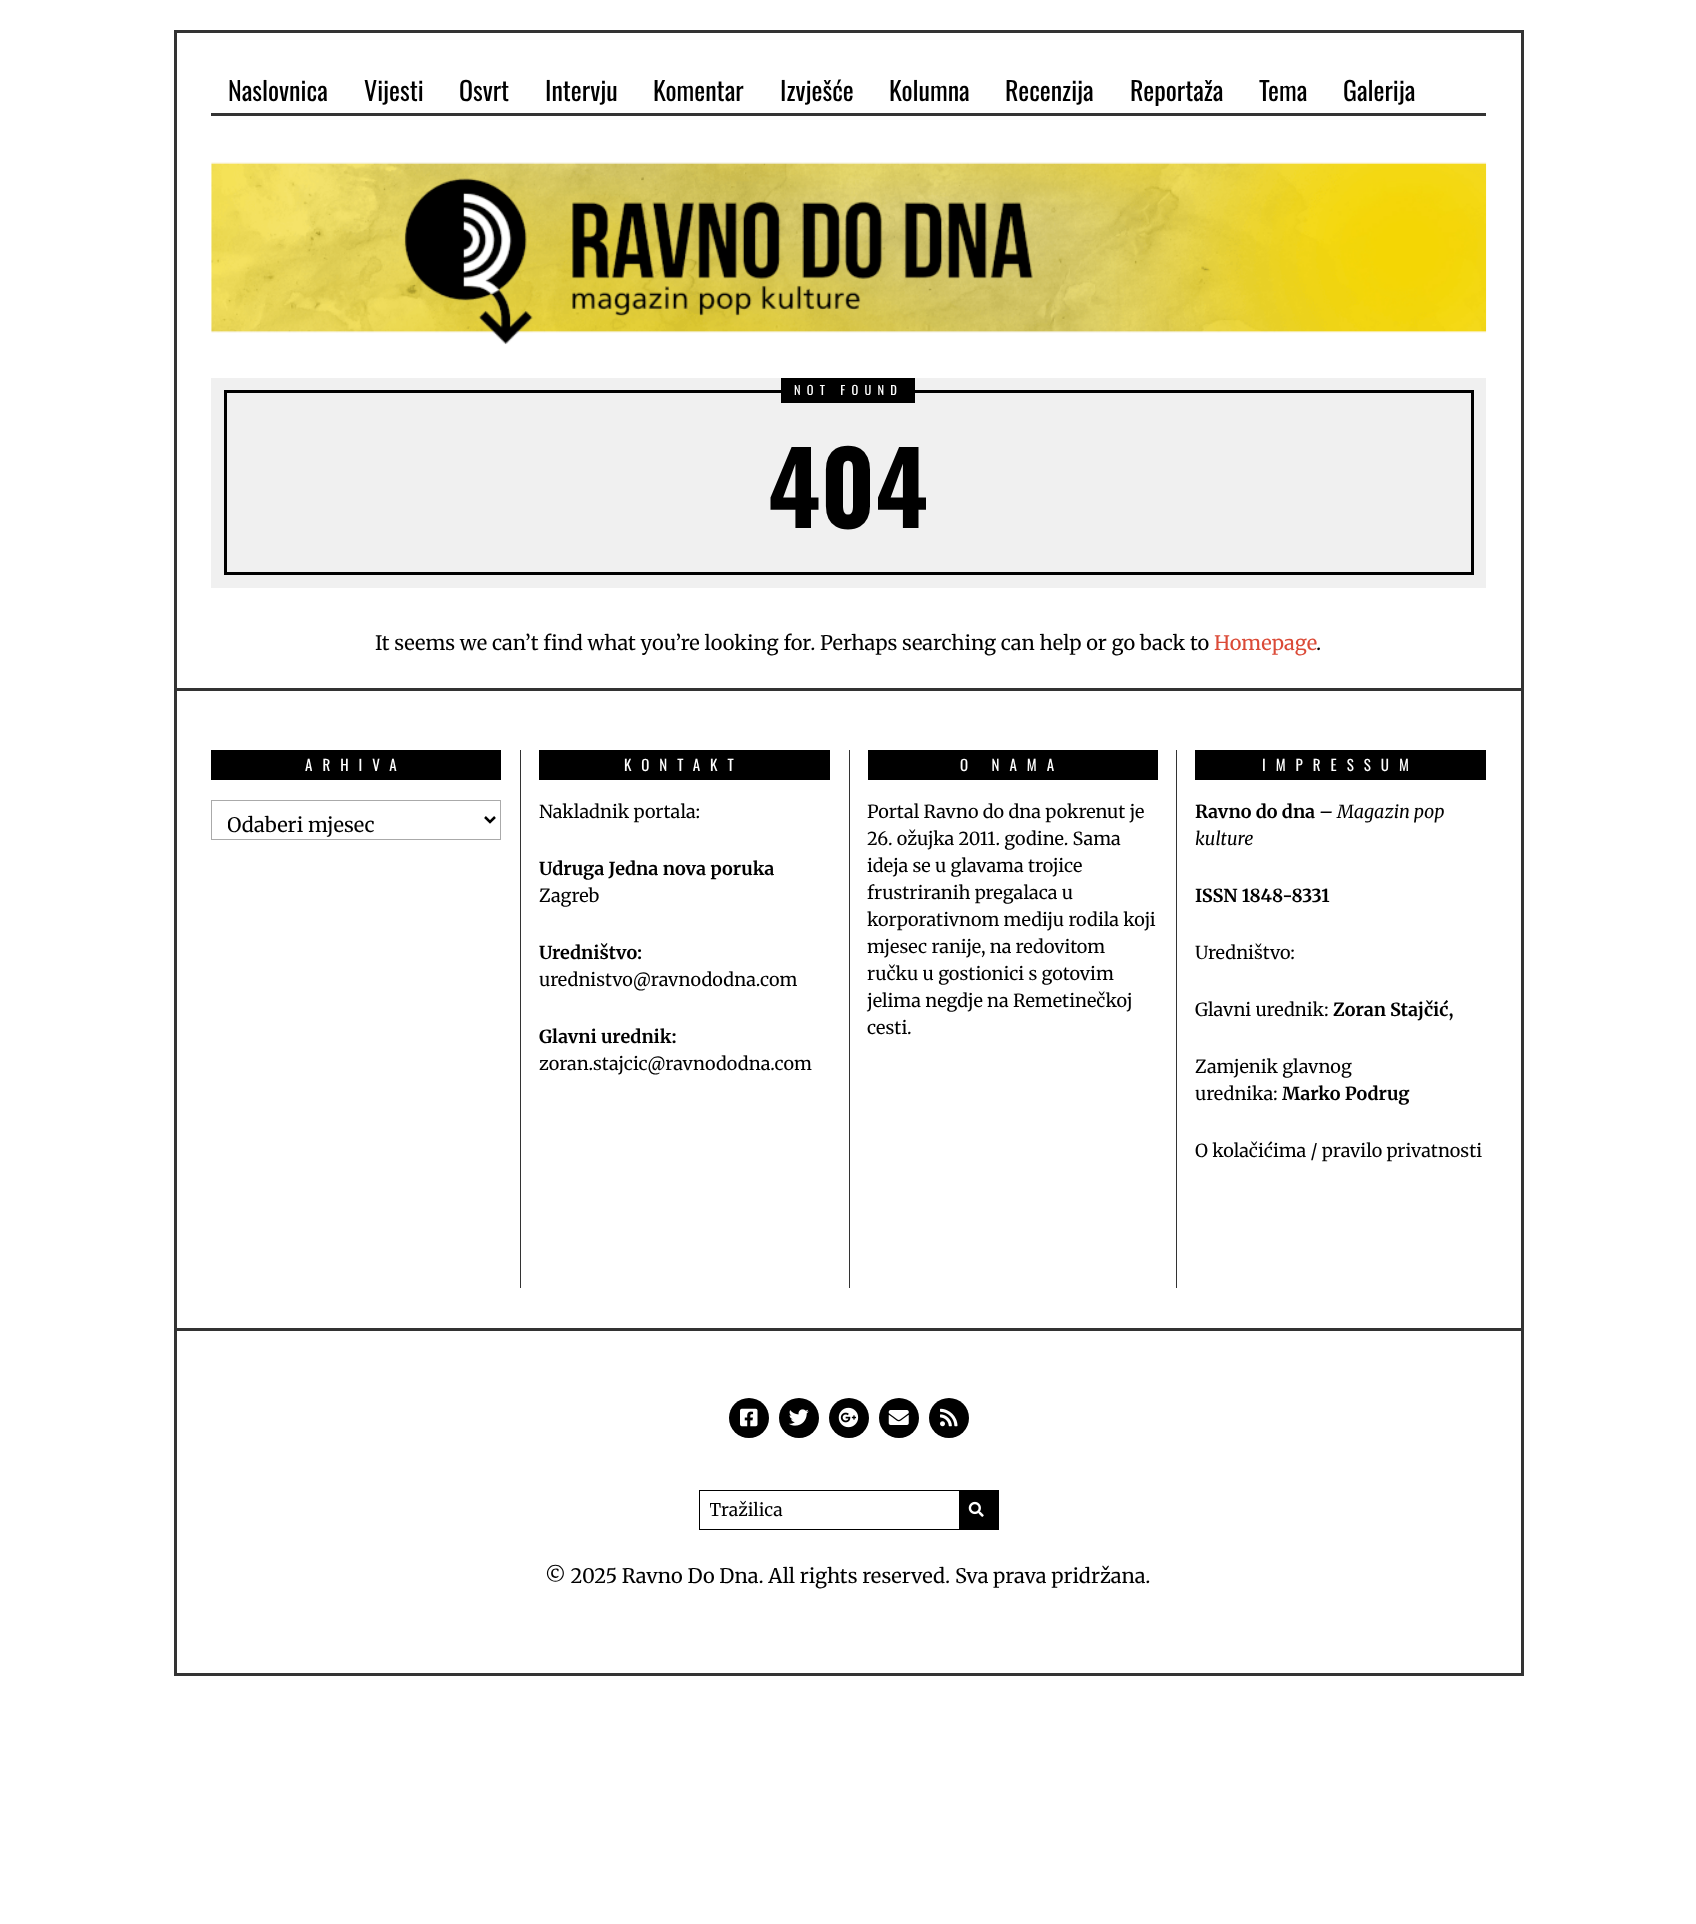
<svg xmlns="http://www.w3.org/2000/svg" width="1696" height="1924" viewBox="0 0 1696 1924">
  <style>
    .t1 { font: 26px Oswald; fill: #000; }
    .t2 { font: 12.5px Oswald; letter-spacing: 6.25px; fill: #fff; }
    .t3 { font: bold 100px Oswald; fill: #000; }
    .t4 { font: 20px Merriweather; fill: #000; }
    .t5 { font: 20px Merriweather; fill: #db4a37; }
    .t6 { font: 15px Oswald; letter-spacing: 10px; fill: #fff; }
    .t7 { font: 18px Merriweather; fill: #000; }
    .t8 { font: bold 18px Merriweather; fill: #000; }
    .t9 { font: italic 18px Merriweather; fill: #000; }
    .t10 { font: 17.5px Merriweather; fill: #000; }
  </style>
  <defs>
    <clipPath id="clip1"><rect x="228" y="811" width="242" height="28"/></clipPath>
    <clipPath id="clip2"><rect x="710" y="1499" width="243" height="22"/></clipPath>
  </defs>
  <rect width="100%" height="100%" fill="#fff"/>
  <rect x="174" y="30" width="1350" height="3" fill="#333"/>
  <rect x="174" y="1673" width="1350" height="3" fill="#333"/>
  <rect x="174" y="688" width="1350" height="3" fill="#333"/>
  <rect x="174" y="33" width="3" height="1642" fill="#333"/>
  <text x="228" y="101" class="t1">Naslovnica</text>
  <text x="364" y="101" class="t1">Vijesti</text>
  <text x="459" y="101" class="t1">Osvrt</text>
  <text x="545" y="101" class="t1">Intervju</text>
  <text x="653" y="101" class="t1">Komentar</text>
  <text x="780" y="101" class="t1">Izvješće</text>
  <text x="889" y="101" class="t1">Kolumna</text>
  <text x="1005" y="101" class="t1">Recenzija</text>
  <text x="1130" y="101" class="t1">Reportaža</text>
  <text x="1259" y="101" class="t1">Tema</text>
  <text x="1343" y="101" class="t1">Galerija</text>
  <rect x="211" y="113" width="1275" height="3" fill="#333"/>
  <rect x="174" y="1328" width="1350" height="3" fill="#333"/>
  <rect x="1521" y="33" width="3" height="1642" fill="#333"/>
  <image x="211" y="162" width="1276" height="183" href="images/1.png"/>
  <rect x="211" y="378" width="1275" height="210" fill="#f0f0f0"/>
  <rect x="225.5" y="391.5" width="1247" height="182" fill="none" stroke="#000" stroke-width="3"/>
  <rect x="781" y="378" width="134" height="25" fill="#000"/>
  <text x="794" y="395" class="t2">NOT FOUND</text>
  <text x="768" y="528" class="t3">404</text>
  <text x="375" y="650" class="t4">It seems we can’t find what you’re looking for. Perhaps searching can help or go back to</text>
  <text x="1214" y="650" class="t5">Homepage</text>
  <text x="1316" y="650" class="t4">.</text>
  <rect x="211" y="750" width="290" height="30" fill="#000"/>
  <text x="305" y="771" class="t6">ARHIVA</text>
  <rect x="211.5" y="800.5" width="289" height="39" fill="none" stroke="#aaa"/>
  <path d="M485 817L490 822L495 817" fill="none" stroke="#000" stroke-width="2.5"/>
  <g clip-path="url(#clip1)">
    <text x="227" y="832" class="t4">Odaberi mjesec</text>
  </g>
  <rect x="520" y="750" width="1" height="538" fill="#333"/>
  <rect x="539" y="750" width="291" height="30" fill="#000"/>
  <text x="624" y="771" class="t6">KONTAKT</text>
  <text x="539" y="818" class="t7">Nakladnik portala:</text>
  <text x="539" y="875" class="t8">Udruga Jedna nova poruka</text>
  <text x="539" y="902" class="t7">Zagreb</text>
  <text x="539" y="959" class="t8">Uredništvo:</text>
  <text x="539" y="986" class="t7">urednistvo@ravnododna.com</text>
  <text x="539" y="1043" class="t8">Glavni urednik:</text>
  <text x="539" y="1070" class="t7">zoran.stajcic@ravnododna.com</text>
  <rect x="849" y="750" width="1" height="538" fill="#333"/>
  <rect x="868" y="750" width="290" height="30" fill="#000"/>
  <text x="960" y="771" class="t6">O NAMA</text>
  <text x="867" y="818" class="t7">Portal Ravno do dna pokrenut je</text>
  <text x="867" y="845" class="t7">26. ožujka 2011. godine. Sama</text>
  <text x="867" y="872" class="t7">ideja se u glavama trojice</text>
  <text x="867" y="899" class="t7">frustriranih pregalaca u</text>
  <text x="867" y="926" class="t7">korporativnom mediju rodila koji</text>
  <text x="867" y="953" class="t7">mjesec ranije, na redovitom</text>
  <text x="867" y="980" class="t7">ručku u gostionici s gotovim</text>
  <text x="867" y="1007" class="t7">jelima negdje na Remetinečkoj</text>
  <text x="867" y="1034" class="t7">cesti.</text>
  <rect x="1176" y="750" width="1" height="538" fill="#333"/>
  <rect x="1195" y="750" width="291" height="30" fill="#000"/>
  <text x="1262" y="771" class="t6">IMPRESSUM</text>
  <text x="1195" y="818" class="t8">Ravno do dna</text>
  <text x="1319" y="818" class="t9">– Magazin pop</text>
  <text x="1195" y="845" class="t9">kulture</text>
  <text x="1195" y="902" class="t8">ISSN 1848-8331</text>
  <text x="1195" y="959" class="t7">Uredništvo:</text>
  <text x="1195" y="1016" class="t7">Glavni urednik:</text>
  <text x="1333" y="1016" class="t8">Zoran Stajčić,</text>
  <text x="1195" y="1073" class="t7">Zamjenik glavnog</text>
  <text x="1195" y="1100" class="t7">urednika:</text>
  <text x="1282" y="1100" class="t8">Marko Podrug</text>
  <text x="1195" y="1157" class="t7">O kolačićima / pravilo privatnosti</text>
  <circle cx="749" cy="1418" r="20" fill="#000"/>
  <image x="740" y="1408" width="18" height="19" href="images/2.png"/>
  <circle cx="799" cy="1418" r="20" fill="#000"/>
  <image x="789" y="1409" width="20" height="17" href="images/3.png"/>
  <circle cx="849" cy="1418" r="20" fill="#000"/>
  <image x="838" y="1407" width="21" height="21" href="images/4.png"/>
  <circle cx="899" cy="1418" r="20" fill="#000"/>
  <image x="888" y="1410" width="21" height="15" href="images/5.png"/>
  <circle cx="949" cy="1418" r="20" fill="#000"/>
  <image x="940" y="1408" width="18" height="19" href="images/6.png"/>
  <rect x="699.5" y="1490.5" width="299" height="39" fill="none" stroke="#000"/>
  <g clip-path="url(#clip2)">
    <text x="709" y="1516" class="t10">Tražilica</text>
  </g>
  <rect x="959" y="1491" width="39" height="38" fill="#000"/>
  <image x="968" y="1501" width="16" height="16" href="images/7.png"/>
  <text x="545" y="1583" class="t4">© 2025 Ravno Do Dna. All rights reserved. Sva prava pridržana.</text>
</svg>
